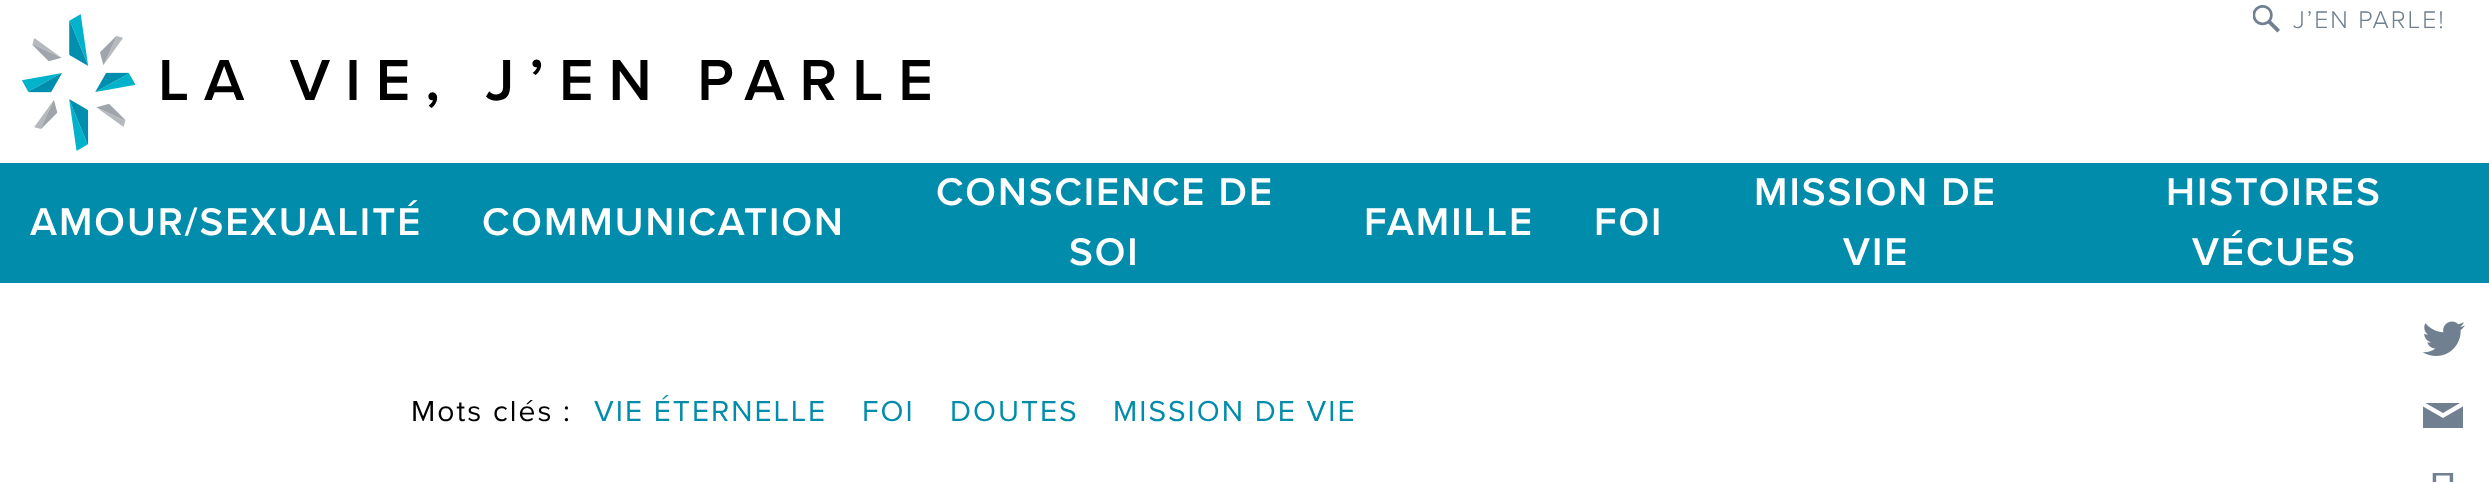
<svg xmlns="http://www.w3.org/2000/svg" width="2489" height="482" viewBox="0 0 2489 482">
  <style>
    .t1 { font: 300 25px Proxima Nova; letter-spacing: 2px; fill: #708090; }
    .t2 { font: 600 60px Proxima Nova; letter-spacing: 15px; fill: #000; }
    .t3 { font: 600 40px Proxima Nova; letter-spacing: 2px; fill: #fff; }
    .t4 { font: 30px Proxima Nova; letter-spacing: 2px; fill: #000; }
    .t5 { font: 30px Proxima Nova; letter-spacing: 2px; fill: #008caa; }
  </style>
  <defs>
    <clipPath id="clip1"><rect x="2423" y="395" width="42" height="43"/></clipPath>
  </defs>
  <rect width="100%" height="100%" fill="#fff"/>
  <image x="2253" y="5" width="27" height="28" href="images/1.png"/>
  <text x="2293" y="28" class="t1">J’EN PARLE!</text>
  <image x="22" y="14" width="114" height="137" href="images/2.png"/>
  <text x="158" y="100" class="t2">LA VIE, J’EN PARLE</text>
  <rect x="0" y="163" width="2489" height="120" fill="#008caa"/>
  <text x="30" y="235" class="t3">AMOUR/SEXUALITÉ</text>
  <text x="482" y="235" class="t3">COMMUNICATION</text>
  <text x="936" y="205" class="t3">CONSCIENCE DE</text>
  <text x="1069" y="265" class="t3">SOI</text>
  <text x="1364" y="235" class="t3">FAMILLE</text>
  <text x="1594" y="235" class="t3">FOI</text>
  <text x="1754" y="205" class="t3">MISSION DE</text>
  <text x="1843" y="265" class="t3">VIE</text>
  <text x="2166" y="205" class="t3">HISTOIRES</text>
  <text x="2192" y="265" class="t3">VÉCUES</text>
  <text x="411" y="421" class="t4">Mots clés :</text>
  <text x="594" y="421" class="t5">VIE ÉTERNELLE</text>
  <text x="862" y="421" class="t5">FOI</text>
  <text x="950" y="421" class="t5">DOUTES</text>
  <text x="1113" y="421" class="t5">MISSION DE VIE</text>
  <image x="2423" y="321" width="42" height="35" href="images/3.png"/>
  <g clip-path="url(#clip1)">
    <path d="M2462 407L2443 418L2422 406V428H2463V406Z" fill="#708090"/>
  </g>
  <path d="M2425.5 403L2443 413L2460 403Z" fill="#708090"/>
  <image x="2432" y="473" width="22" height="9" href="images/4.png"/>
</svg>
